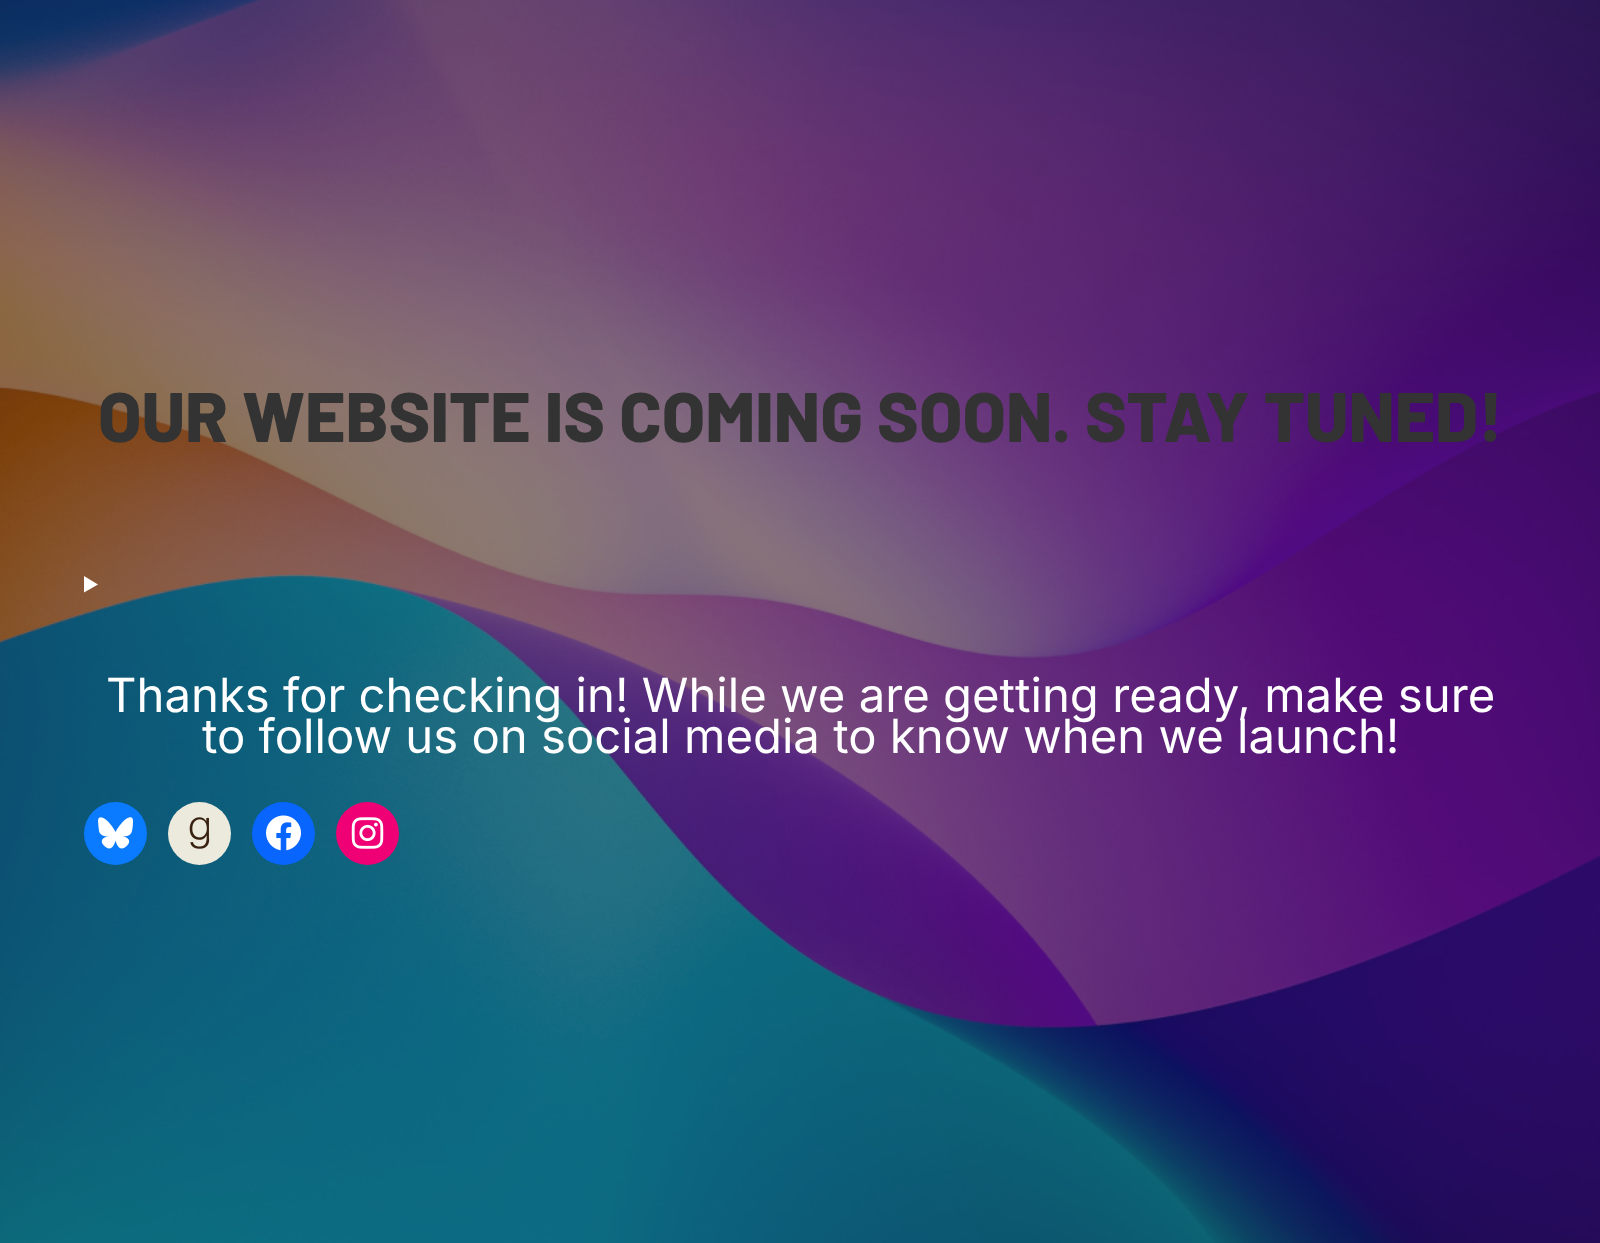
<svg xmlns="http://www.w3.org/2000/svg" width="1600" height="1243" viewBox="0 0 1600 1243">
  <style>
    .t1 { font: 800 70px Barlow; fill: #333; }
    .t2 { font: 47.25px Inter; fill: #fff; }
  </style>
  <rect width="100%" height="100%" fill="#191717"/>
  <image x="0" y="0" width="1600" height="1243" href="images/1.png"/>
  <text x="98" y="442" class="t1">OUR WEBSITE IS COMING SOON. STAY TUNED!</text>
  <path d="M84 576L98 584.5L84 592.5Z" fill="#fff"/>
  <text x="106" y="712" class="t2">Thanks for checking in! While we are getting ready, make sure</text>
  <text x="202" y="753" class="t2">to follow us on social media to know when we launch!</text>
  <circle cx="115.5" cy="833.5" r="31.5" fill="#0a7aff"/>
  <image x="98" y="817" width="35" height="32" href="images/2.png"/>
  <circle cx="199.5" cy="833.5" r="31.5" fill="#eceadd"/>
  <image x="189" y="817" width="21" height="32" href="images/3.png"/>
  <circle cx="283.5" cy="833.5" r="31.5" fill="#0866ff"/>
  <image x="266" y="815" width="35" height="36" href="images/4.png"/>
  <circle cx="367.5" cy="833.5" r="31.5" fill="#f00075"/>
  <image x="351" y="817" width="33" height="32" href="images/5.png"/>
</svg>
